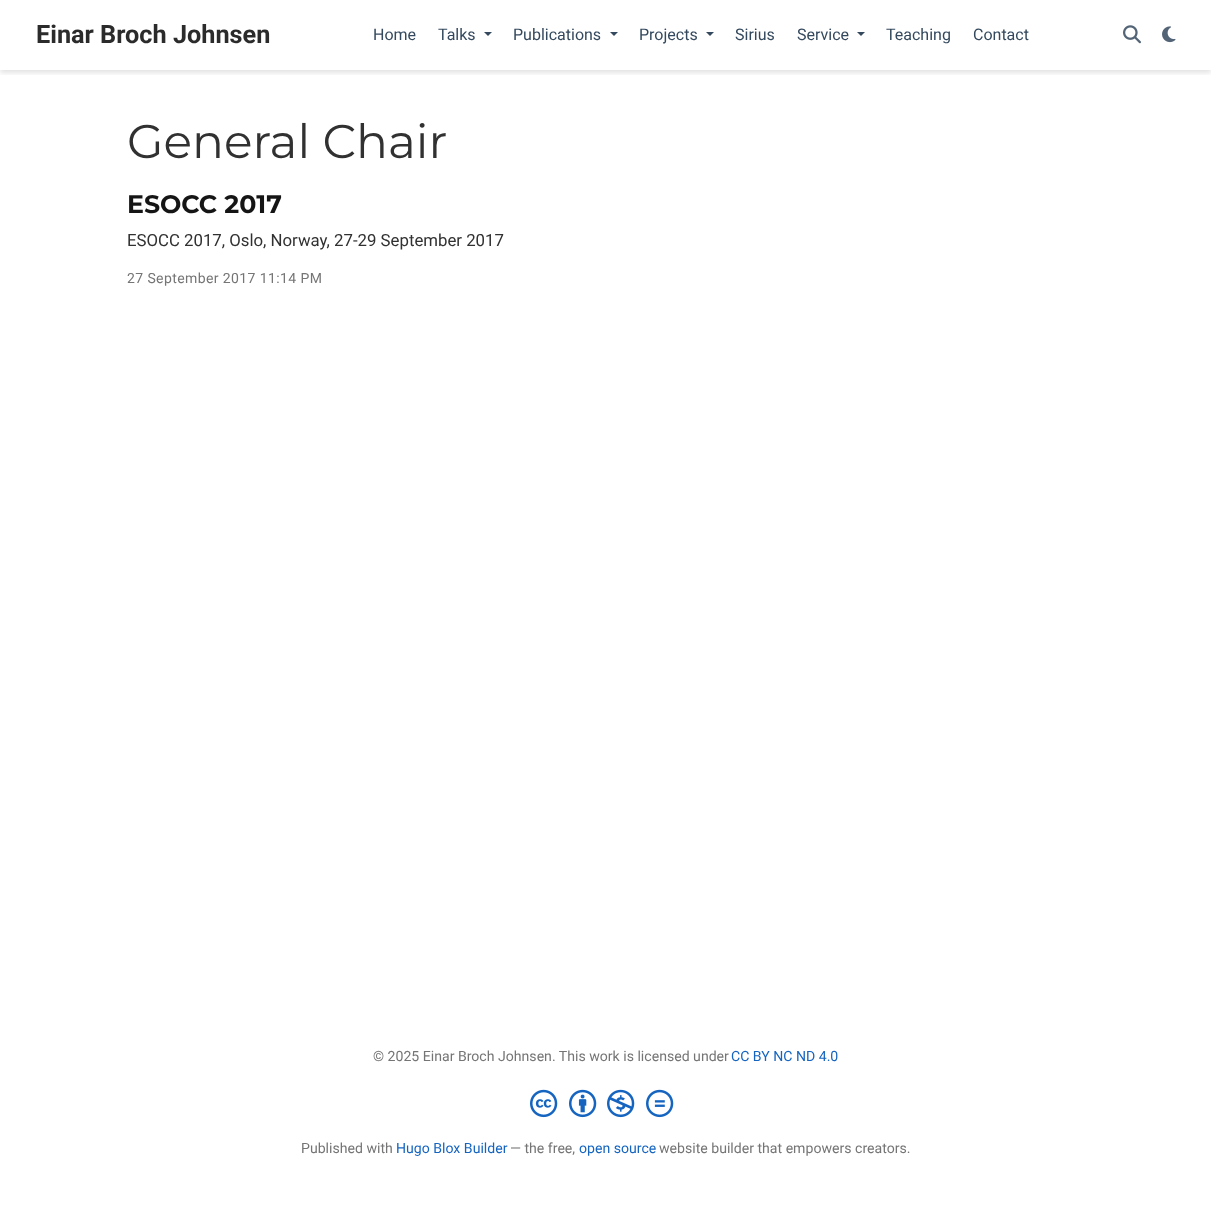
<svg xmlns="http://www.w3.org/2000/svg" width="1211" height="1230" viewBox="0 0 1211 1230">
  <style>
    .t1 { font: bold 25.25px Roboto; fill: #2b2b2b; }
    .t2 { font: 16px Roboto; fill: #34495e; }
    .t3 { font: 47.25px Montserrat; fill: #313131; }
    .t4 { font: bold 25.25px Montserrat; fill: #151515; }
    .t5 { font: 16.8px Roboto; fill: #313131; }
    .t6 { font: 14px Roboto; letter-spacing: 0.4px; fill: #757575; }
    .t7 { font: 14.1px Roboto; fill: #757575; }
    .t8 { font: 14.1px Roboto; fill: #1565c0; }
  </style>
  <defs>
    <clipPath id="clip1"><rect x="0" y="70" width="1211" height="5"/></clipPath>
  </defs>
  <rect width="100%" height="100%" fill="#fff"/>
  <g clip-path="url(#clip1)">
    <rect x="0" y="3" width="1211" height="70" fill="#0000001c" filter="blur(2.5px)"/>
  </g>
  <text x="36" y="43" class="t1">Einar Broch Johnsen</text>
  <text x="373" y="40" class="t2">Home</text>
  <text x="438" y="40" class="t2">Talks</text>
  <path d="M484 32H492L488 36Z" fill="#34495e"/>
  <text x="513" y="40" class="t2">Publications</text>
  <path d="M610 32H618L614 36Z" fill="#34495e"/>
  <text x="639" y="40" class="t2">Projects</text>
  <path d="M706 32H714L710 36Z" fill="#34495e"/>
  <text x="735" y="40" class="t2">Sirius</text>
  <text x="797" y="40" class="t2">Service</text>
  <path d="M857 32H865L861 36Z" fill="#34495e"/>
  <text x="886" y="40" class="t2">Teaching</text>
  <text x="973" y="40" class="t2">Contact</text>
  <image x="1123" y="25" width="18" height="19" href="images/1.png"/>
  <image x="1162" y="26" width="14" height="17" href="images/2.png"/>
  <text x="127" y="158" class="t3">General Chair</text>
  <text x="127" y="213" class="t4">ESOCC 2017</text>
  <text x="127" y="246" class="t5">ESOCC 2017, Oslo, Norway, 27-29 September 2017</text>
  <text x="127" y="283" class="t6">27 September 2017 11:14 PM</text>
  <text x="373" y="1061" class="t7">© 2025 Einar Broch Johnsen. This work is licensed under</text>
  <text x="731" y="1061" class="t8">CC BY NC ND 4.0</text>
  <image x="530" y="1089" width="28" height="29" href="images/3.png"/>
  <image x="569" y="1089" width="28" height="29" href="images/4.png"/>
  <image x="607" y="1089" width="28" height="29" href="images/5.png"/>
  <image x="646" y="1089" width="28" height="29" href="images/6.png"/>
  <text x="301" y="1153" class="t7">Published with</text>
  <text x="396" y="1153" class="t8">Hugo Blox Builder</text>
  <text x="510" y="1153" class="t7">— the free,</text>
  <text x="579" y="1153" class="t8">open source</text>
  <text x="659" y="1153" class="t7">website builder that empowers creators.</text>
</svg>
